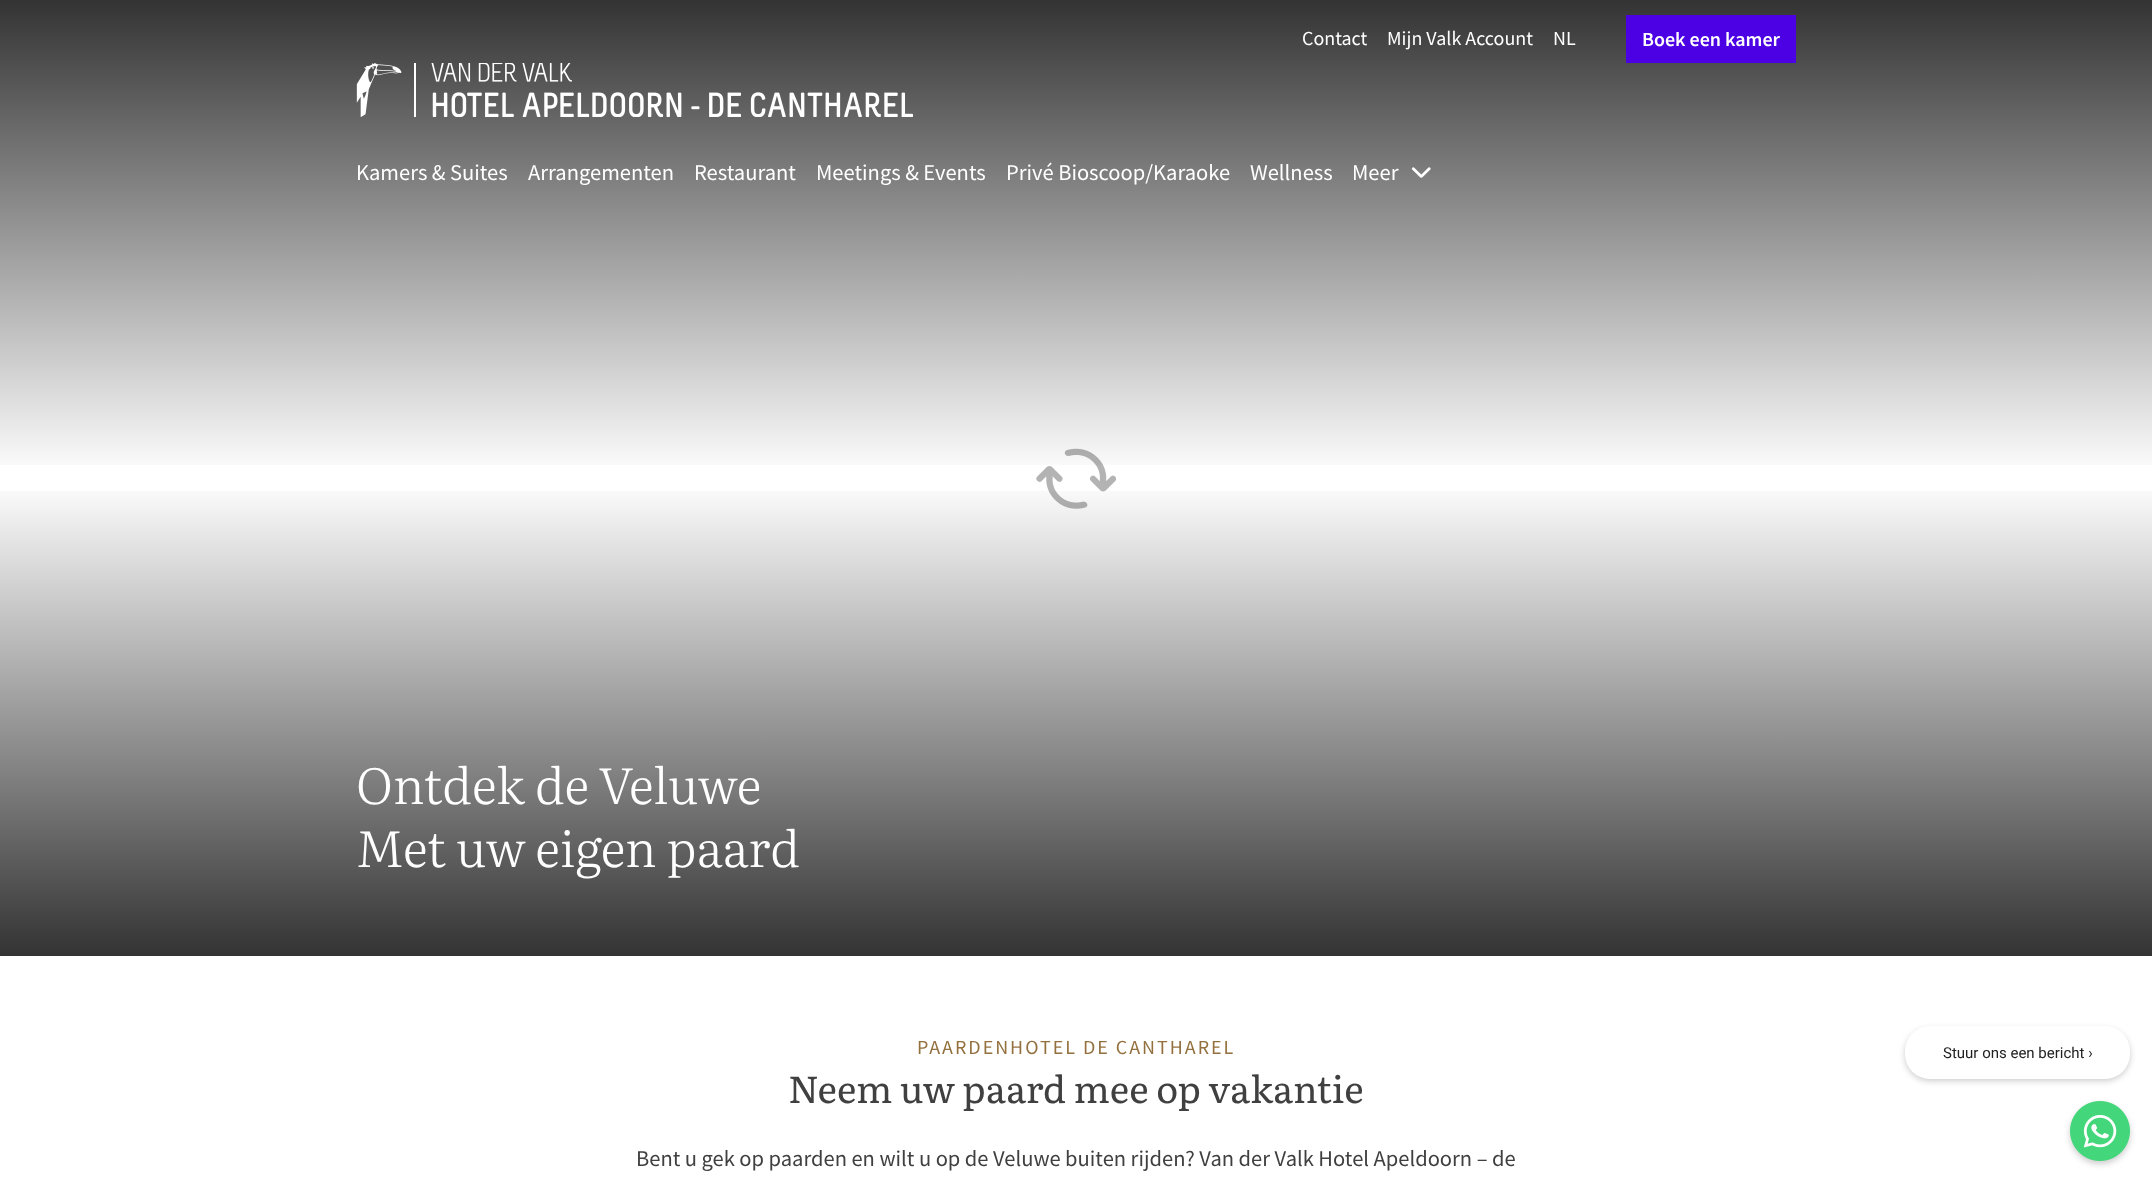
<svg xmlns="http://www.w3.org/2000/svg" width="2152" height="1183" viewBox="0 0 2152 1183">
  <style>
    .t1 { font: 20px Source Sans Pro; fill: #fff; }
    .t2 { font: 600 20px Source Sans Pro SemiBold; fill: #fff; }
    .t3 { font: 22.5px Source Sans Pro; fill: #fff; }
    .t4 { font: 300 50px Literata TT; fill: #fff; }
    .t5 { font: 20px Source Sans Pro; letter-spacing: 2px; fill: #93703e; }
    .t6 { font: 37.5px Literata TT; fill: #404040; }
    .t7 { font: 22.5px Source Sans Pro; fill: #404040; }
    .t8 { font: 15px Roboto; fill: #222; }
  </style>
  <defs>
    <linearGradient id="g1" gradientUnits="userSpaceOnUse" x1="1076" y1="0" x2="1076" y2="956"><stop offset="0" stop-color="#000" stop-opacity="0.8"/><stop offset="0.5" stop-color="#000" stop-opacity="0"/></linearGradient>
    <linearGradient id="g2" gradientUnits="userSpaceOnUse" x1="1076" y1="956" x2="1076" y2="0"><stop offset="0" stop-color="#000" stop-opacity="0.8"/><stop offset="0.5" stop-color="#000" stop-opacity="0"/></linearGradient>
  </defs>
  <rect width="100%" height="100%" fill="#fff"/>
  <image x="1036" y="448" width="80" height="61" href="images/3.png"/>
  <rect x="0" y="0" width="2152" height="465" fill="url(#g1)"/>
  <text x="1302" y="45" class="t1">Contact</text>
  <text x="1387" y="45" class="t1">Mijn Valk Account</text>
  <text x="1553" y="45" class="t1">NL</text>
  <rect x="1626" y="15" width="170" height="48" fill="#4c00e4"/>
  <text x="1642" y="46" class="t2">Boek een kamer</text>
  <image x="356" y="63" width="557" height="54" href="images/1.png"/>
  <text x="356" y="180" class="t3">Kamers &amp; Suites</text>
  <text x="528" y="180" class="t3">Arrangementen</text>
  <text x="694" y="180" class="t3">Restaurant</text>
  <text x="816" y="180" class="t3">Meetings &amp; Events</text>
  <text x="1006" y="180" class="t3">Privé Bioscoop/Karaoke</text>
  <text x="1250" y="180" class="t3">Wellness</text>
  <text x="1352" y="180" class="t3">Meer</text>
  <image x="1411" y="167" width="20" height="11" href="images/2.png"/>
  <rect x="0" y="491" width="2152" height="465" fill="url(#g2)"/>
  <text x="356" y="804" class="t4">Ontdek de Veluwe</text>
  <text x="356" y="867" class="t4">Met uw eigen paard</text>
  <text x="917" y="1054" class="t5">PAARDENHOTEL DE CANTHAREL</text>
  <text x="788" y="1103" class="t6">Neem uw paard mee op vakantie</text>
  <text x="636" y="1166" class="t7">Bent u gek op paarden en wilt u op de Veluwe buiten rijden? Van der Valk Hotel Apeldoorn – de</text>
  <rect x="1905" y="1029" width="225" height="52" rx="25" fill="#00000033" filter="blur(3px)"/>
  <rect x="1905" y="1026" width="225" height="53" rx="25" fill="#fff"/>
  <text x="1943" y="1058" class="t8">Stuur ons een bericht ›</text>
  <rect x="2070" y="1104" width="60" height="60" rx="30" fill="#00000033" filter="blur(3px)"/>
  <image x="2070" y="1101" width="60" height="60" href="images/4.png"/>
</svg>
